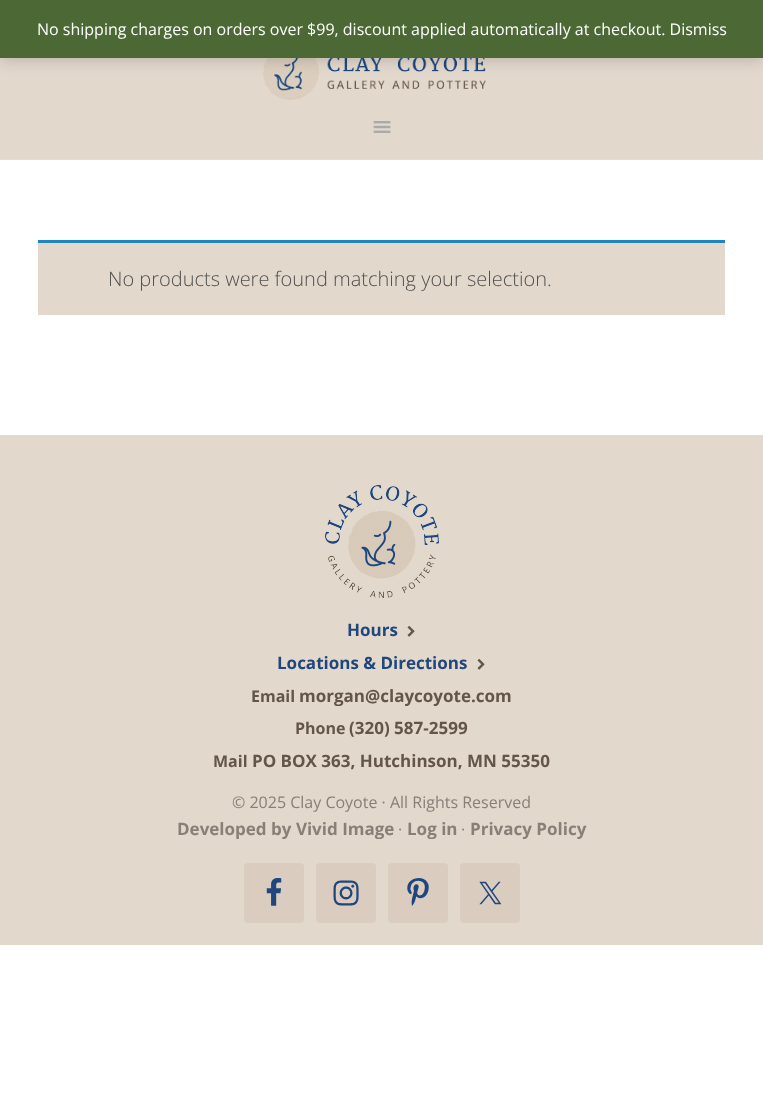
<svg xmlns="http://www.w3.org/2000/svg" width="763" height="1110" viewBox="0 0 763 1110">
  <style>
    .t1 { font: 16px Open Sans; fill: #fff; }
    .t2 { font: 300 20px Open Sans; fill: #515151; }
    .t3 { font: bold 17px Open Sans; fill: #1f477d; }
    .t4 { font: bold 16px Open Sans; fill: #64554b; }
    .t5 { font: bold 17px Open Sans; fill: #64554b; }
    .t6 { font: 16px Open Sans; fill: #887f76; }
    .t7 { font: bold 17px Open Sans; fill: #887f76; }
  </style>
  <rect width="100%" height="100%" fill="#fff"/>
  <rect x="0" y="58" width="763" height="101" fill="#e3d8cc"/>
  <image x="263" y="58" width="223" height="42" href="images/1.png"/>
  <rect x="0" y="1" width="763" height="58" fill="#00000033" filter="blur(8px)"/>
  <rect x="0" y="0" width="763" height="58" fill="#4c6935"/>
  <text x="37" y="35" class="t1">No shipping charges on orders over $99, discount applied automatically at checkout. Dismiss</text>
  <rect x="0" y="159" width="763" height="1" fill="#ddd"/>
  <image x="373" y="121" width="18" height="12" href="images/2.png"/>
  <rect x="38" y="243" width="687" height="72" fill="#e3d8cc"/>
  <rect x="38" y="240" width="687" height="3" fill="#1e85be"/>
  <text x="108" y="286" class="t2">No products were found matching your selection.</text>
  <rect x="0" y="435" width="763" height="510" fill="#e3d8cc"/>
  <image x="325" y="485" width="114" height="113" href="images/3.png"/>
  <text x="347" y="636" class="t3">Hours</text>
  <image x="407" y="626" width="8" height="11" href="images/4.png"/>
  <text x="277" y="669" class="t3">Locations &amp; Directions</text>
  <image x="477" y="659" width="8" height="11" href="images/4.png"/>
  <text x="251" y="702" class="t4">Email</text>
  <text x="299" y="702" class="t5">morgan@claycoyote.com</text>
  <text x="295" y="734" class="t4">Phone</text>
  <text x="349" y="734" class="t5">(320) 587-2599</text>
  <text x="213" y="767" class="t4">Mail</text>
  <text x="252" y="767" class="t5">PO BOX 363, Hutchinson, MN 55350</text>
  <text x="232" y="808" class="t6">© 2025 Clay Coyote · All Rights Reserved</text>
  <text x="177" y="835" class="t7">Developed by Vivid Image</text>
  <text x="398" y="835" class="t6">·</text>
  <text x="407" y="835" class="t7">Log in</text>
  <text x="461" y="835" class="t6">·</text>
  <text x="470" y="835" class="t7">Privacy Policy</text>
  <rect x="244" y="863" width="60" height="60" rx="4" fill="#dacdbf"/>
  <image x="266" y="878" width="16" height="28" href="images/5.png"/>
  <rect x="316" y="863" width="60" height="60" rx="4" fill="#dacdbf"/>
  <image x="333" y="880" width="26" height="26" href="images/6.png"/>
  <rect x="388" y="863" width="60" height="60" rx="4" fill="#dacdbf"/>
  <image x="407" y="878" width="22" height="28" href="images/7.png"/>
  <rect x="460" y="863" width="60" height="60" rx="4" fill="#dacdbf"/>
  <image x="479" y="881" width="23" height="24" href="images/8.png"/>
</svg>
